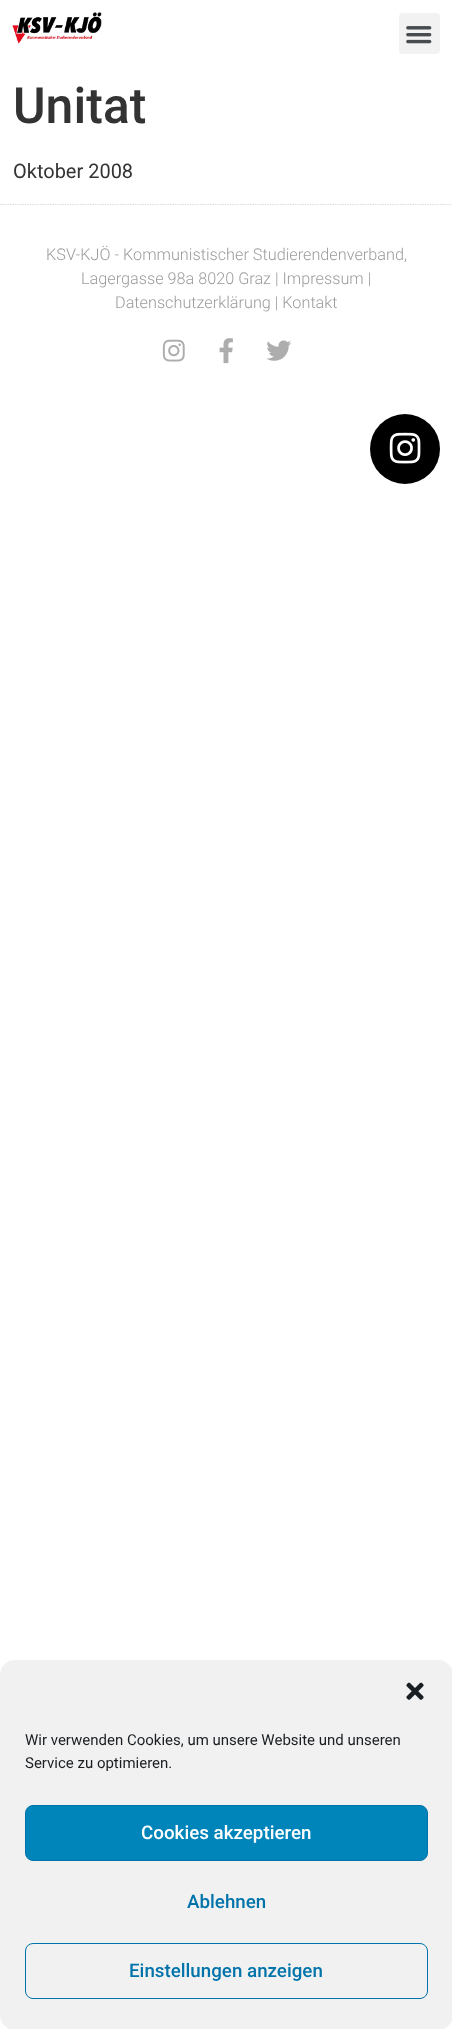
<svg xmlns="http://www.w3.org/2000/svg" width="452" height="2029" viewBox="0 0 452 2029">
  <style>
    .t1 { font: 500 50px Roboto; fill: #333; }
    .t2 { font: 20px Roboto; fill: #333; }
    .t3 { font: 300 16.25px Roboto; fill: #9c9c9c; }
    .t4 { font: 15px Roboto; fill: #191e23; }
    .t5 { font: 500 18.75px Roboto; fill: #fff; }
    .t6 { font: 500 18.75px Roboto; fill: #0073aa; }
  </style>
  <rect width="100%" height="100%" fill="#fff"/>
  <image x="12" y="12" width="90" height="32" href="images/1.png"/>
  <rect x="399" y="13" width="41" height="41" rx="4" fill="#f2f2f2"/>
  <image x="406" y="26" width="26" height="18" href="images/2.png"/>
  <text x="13" y="123" class="t1">Unitat</text>
  <text x="13" y="178" class="t2">Oktober 2008</text>
  <path d="M0 204.5H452.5" fill="none" stroke="#d6d6d6" stroke-width="1.2" stroke-dasharray="1.25 1.25"/>
  <text x="46" y="260" class="t3">KSV-KJÖ - Kommunistischer Studierendenverband,</text>
  <text x="81" y="284" class="t3">Lagergasse 98a 8020 Graz | Impressum |</text>
  <text x="115" y="308" class="t3">Datenschutzerklärung | Kontakt</text>
  <image x="162" y="339" width="23" height="23" href="images/3.png"/>
  <image x="219" y="338" width="14" height="26" href="images/4.png"/>
  <image x="266" y="340" width="25" height="21" href="images/5.png"/>
  <circle cx="405" cy="449" r="35" fill="#000"/>
  <image x="389" y="432" width="32" height="32" href="images/6.png"/>
  <rect x="0" y="1660" width="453" height="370" rx="15" fill="#f1f1f1"/>
  <image x="406" y="1682" width="18" height="18" href="images/7.png"/>
  <text x="25" y="1745" class="t4">Wir verwenden Cookies, um unsere Website und unseren</text>
  <text x="25" y="1768" class="t4">Service zu optimieren.</text>
  <rect x="25.5" y="1805.5" width="402" height="55" rx="7.5" fill="#0085ba" stroke="#0073aa"/>
  <text x="141" y="1839" class="t5">Cookies akzeptieren</text>
  <text x="187" y="1908" class="t6">Ablehnen</text>
  <rect x="25.5" y="1943.5" width="402" height="55" rx="7.5" fill="none" stroke="#0073aa"/>
  <text x="129" y="1977" class="t6">Einstellungen anzeigen</text>
</svg>
